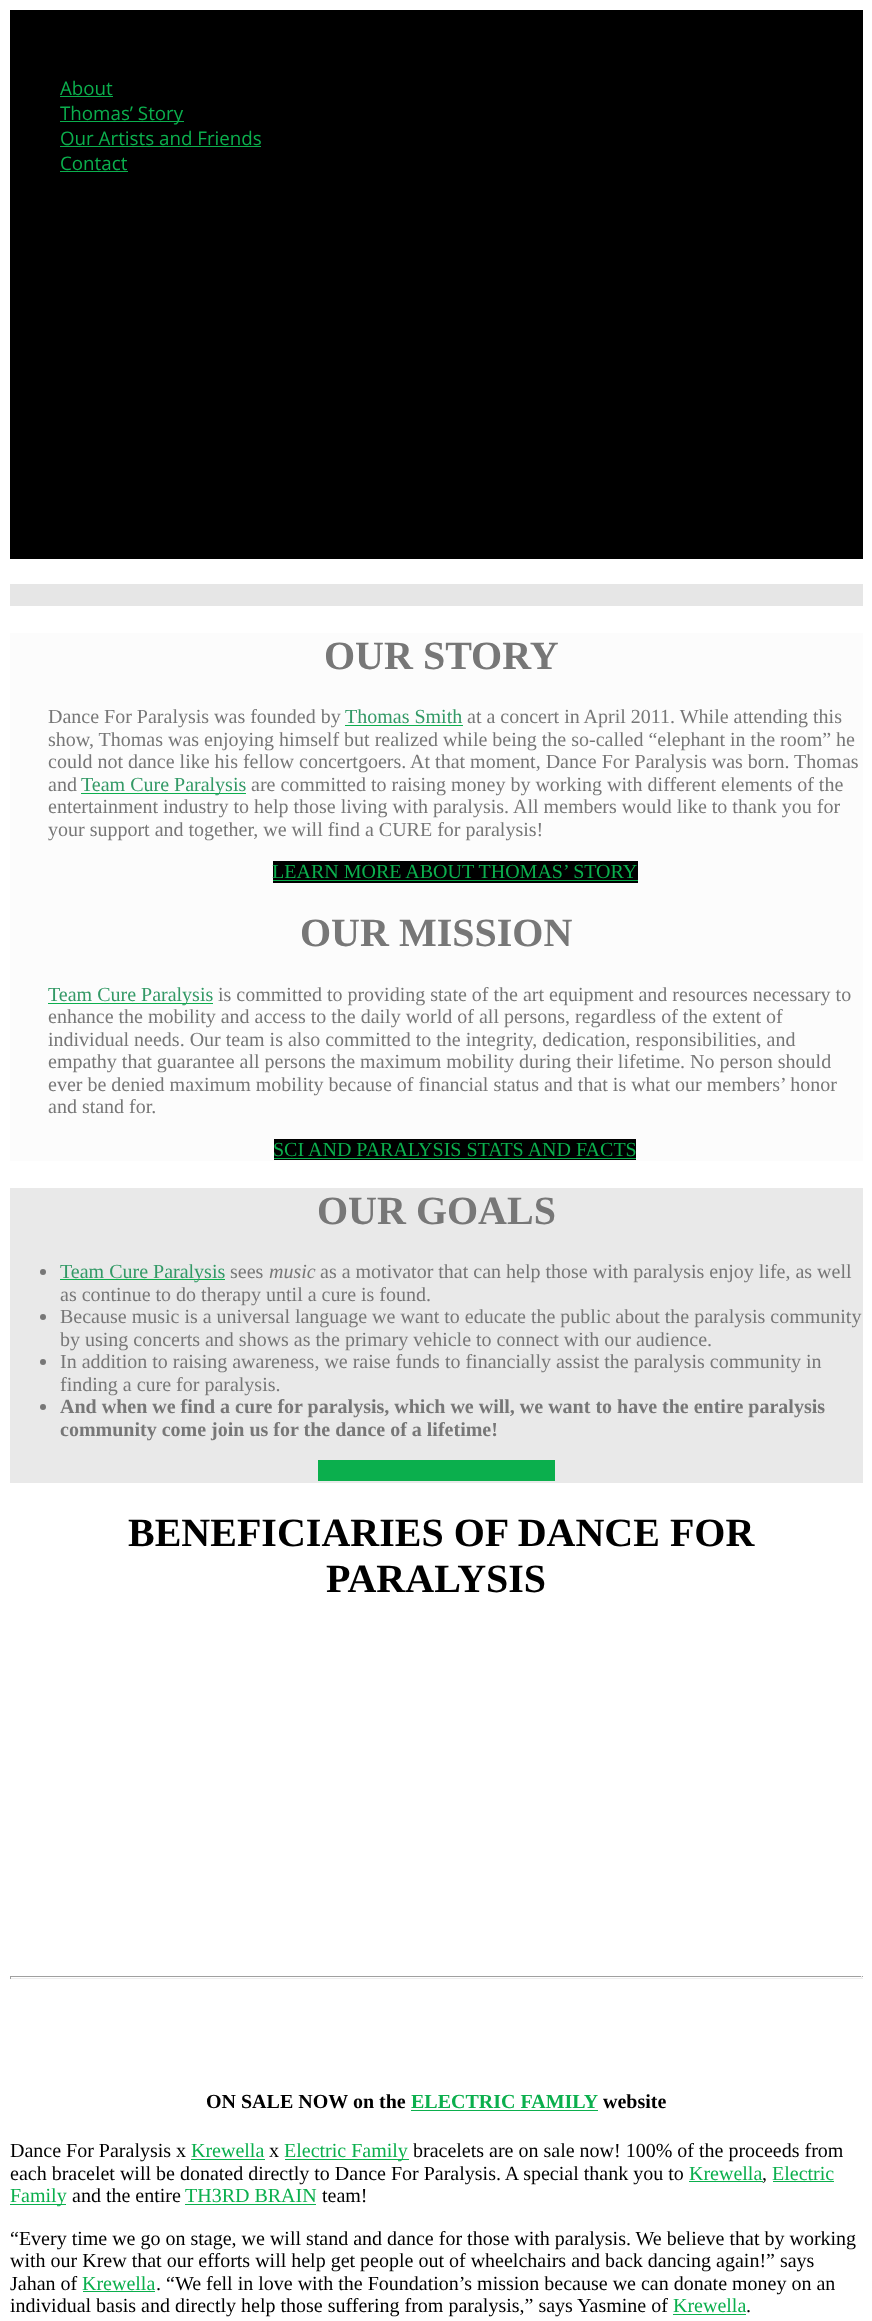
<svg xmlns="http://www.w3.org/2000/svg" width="872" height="2321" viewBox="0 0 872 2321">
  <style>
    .t1 { font: 18.75px Open Sans; fill: #0baf4d; }
    .t2 { font: bold 40px Liberation Serif; fill: #777; }
    .t3 { font: 20px Liberation Serif; fill: #777; }
    .t4 { font: 20px Liberation Serif; fill: #396; }
    .t5 { font: 20px Liberation Serif; fill: #0baf4d; }
    .t6 { font: italic 20px Liberation Serif; fill: #777; }
    .t7 { font: bold 20px Liberation Serif; fill: #777; }
    .t8 { font: bold 40px Liberation Serif; fill: #000; }
    .t9 { font: bold 20px Liberation Serif; fill: #000; }
    .t10 { font: bold 20px Liberation Serif; fill: #0baf4d; }
    .t11 { font: 20px Liberation Serif; fill: #000; }
  </style>
  <rect width="100%" height="100%" fill="#fff"/>
  <rect x="10" y="10" width="853" height="549" fill="#000"/>
  <text x="60" y="95" class="t1">About</text>
  <rect x="60" y="96" width="53" height="1" fill="#0baf4d"/>
  <rect x="60" y="121" width="124" height="1" fill="#0baf4d"/>
  <text x="60" y="120" class="t1">Thomas’ Story</text>
  <text x="60" y="145" class="t1">Our Artists and Friends</text>
  <rect x="60" y="146" width="201" height="1" fill="#0baf4d"/>
  <text x="60" y="170" class="t1">Contact</text>
  <rect x="60" y="171" width="68" height="1" fill="#0baf4d"/>
  <rect x="10" y="584" width="853" height="22" fill="#e6e6e6"/>
  <rect x="10" y="633" width="853" height="528" fill="#fcfcfc"/>
  <text x="324" y="669" class="t2">OUR STORY</text>
  <text x="48" y="723" class="t3">Dance For Paralysis was founded by</text>
  <text x="345" y="723" class="t4">Thomas Smith</text>
  <rect x="345" y="725" width="118" height="1" fill="#0baf4d"/>
  <text x="467" y="723" class="t3">at a concert in April 2011. While attending this</text>
  <text x="48" y="746" class="t3">show, Thomas was enjoying himself but realized while being the so-called “elephant in the room” he</text>
  <text x="48" y="768" class="t3">could not dance like his fellow concertgoers. At that moment, Dance For Paralysis was born. Thomas</text>
  <text x="48" y="791" class="t3">and</text>
  <rect x="81" y="793" width="165" height="1" fill="#0baf4d"/>
  <text x="81" y="791" class="t4">Team Cure Paralysis</text>
  <text x="251" y="791" class="t3">are committed to raising money by working with different elements of the</text>
  <text x="48" y="813" class="t3">entertainment industry to help those living with paralysis. All members would like to thank you for</text>
  <text x="48" y="836" class="t3">your support and together, we will find a CURE for paralysis!</text>
  <rect x="273" y="861" width="365" height="22" fill="#000"/>
  <text x="272" y="878" class="t5">LEARN MORE ABOUT THOMAS’ STORY</text>
  <rect x="273" y="880" width="365" height="1" fill="#0baf4d"/>
  <text x="300" y="946" class="t2">OUR MISSION</text>
  <rect x="48" y="1003" width="165" height="1" fill="#0baf4d"/>
  <text x="48" y="1001" class="t4">Team Cure Paralysis</text>
  <text x="218" y="1001" class="t3">is committed to providing state of the art equipment and resources necessary to</text>
  <text x="48" y="1023" class="t3">enhance the mobility and access to the daily world of all persons, regardless of the extent of</text>
  <text x="48" y="1046" class="t3">individual needs. Our team is also committed to the integrity, dedication, responsibilities, and</text>
  <text x="48" y="1068" class="t3">empathy that guarantee all persons the maximum mobility during their lifetime. No person should</text>
  <text x="48" y="1091" class="t3">ever be denied maximum mobility because of financial status and that is what our members’ honor</text>
  <text x="48" y="1113" class="t3">and stand for.</text>
  <rect x="274" y="1139" width="362" height="21" fill="#000"/>
  <text x="273" y="1156" class="t5">SCI AND PARALYSIS STATS AND FACTS</text>
  <rect x="274" y="1158" width="362" height="1" fill="#0baf4d"/>
  <rect x="10" y="1188" width="853" height="295" fill="#e9e9e9"/>
  <text x="317" y="1224" class="t2">OUR GOALS</text>
  <circle cx="43" cy="1272" r="3" fill="#777"/>
  <rect x="60" y="1279" width="165" height="1" fill="#0baf4d"/>
  <text x="60" y="1278" class="t4">Team Cure Paralysis</text>
  <text x="230" y="1278" class="t3">sees</text>
  <text x="269" y="1278" class="t6">music</text>
  <text x="320" y="1278" class="t3">as a motivator that can help those with paralysis enjoy life, as well</text>
  <text x="60" y="1301" class="t3">as continue to do therapy until a cure is found.</text>
  <circle cx="43" cy="1317" r="3" fill="#777"/>
  <text x="60" y="1323" class="t3">Because music is a universal language we want to educate the public about the paralysis community</text>
  <text x="60" y="1346" class="t3">by using concerts and shows as the primary vehicle to connect with our audience.</text>
  <circle cx="43" cy="1362" r="3" fill="#777"/>
  <text x="60" y="1368" class="t3">In addition to raising awareness, we raise funds to financially assist the paralysis community in</text>
  <text x="60" y="1391" class="t3">finding a cure for paralysis.</text>
  <circle cx="43" cy="1407" r="3" fill="#777"/>
  <text x="60" y="1413" class="t7">And when we find a cure for paralysis, which we will, we want to have the entire paralysis</text>
  <text x="60" y="1436" class="t7">community come join us for the dance of a lifetime!</text>
  <rect x="318" y="1460" width="237" height="21" fill="#0baf4d"/>
  <text x="128" y="1546" class="t8">BENEFICIARIES OF DANCE FOR</text>
  <text x="326" y="1592" class="t8">PARALYSIS</text>
  <rect x="10" y="1976" width="853" height="1" fill="#9f9f9f"/>
  <rect x="861" y="1976" width="1" height="3" fill="#eee"/>
  <rect x="10" y="1978" width="853" height="1" fill="#eee"/>
  <rect x="10" y="1976" width="1" height="3" fill="#9f9f9f"/>
  <text x="206" y="2108" class="t9">ON SALE NOW on the</text>
  <text x="411" y="2108" class="t10">ELECTRIC FAMILY</text>
  <rect x="411" y="2110" width="187" height="1" fill="#0baf4d"/>
  <text x="603" y="2108" class="t9">website</text>
  <text x="10" y="2157" class="t11">Dance For Paralysis x</text>
  <text x="191" y="2157" class="t5">Krewella</text>
  <rect x="191" y="2159" width="74" height="1" fill="#0baf4d"/>
  <text x="269" y="2157" class="t11">x</text>
  <rect x="285" y="2159" width="124" height="1" fill="#0baf4d"/>
  <text x="284" y="2157" class="t5">Electric Family</text>
  <text x="413" y="2157" class="t11">bracelets are on sale now! 100% of the proceeds from</text>
  <text x="10" y="2180" class="t11">each bracelet will be donated directly to Dance For Paralysis. A special thank you to</text>
  <text x="689" y="2180" class="t5">Krewella</text>
  <rect x="689" y="2181" width="74" height="1" fill="#0baf4d"/>
  <text x="762" y="2180" class="t11">,</text>
  <text x="772" y="2180" class="t5">Electric</text>
  <rect x="773" y="2181" width="61" height="1" fill="#0baf4d"/>
  <rect x="10" y="2204" width="56" height="1" fill="#0baf4d"/>
  <text x="10" y="2202" class="t5">Family</text>
  <text x="72" y="2202" class="t11">and the entire</text>
  <text x="185" y="2202" class="t5">TH3RD BRAIN</text>
  <rect x="185" y="2204" width="131" height="1" fill="#0baf4d"/>
  <text x="322" y="2202" class="t11">team!</text>
  <text x="10" y="2245" class="t11">“Every time we go on stage, we will stand and dance for those with paralysis. We believe that by working</text>
  <text x="10" y="2267" class="t11">with our Krew that our efforts will help get people out of wheelchairs and back dancing again!” says</text>
  <text x="10" y="2290" class="t11">Jahan of</text>
  <text x="82" y="2290" class="t5">Krewella</text>
  <rect x="83" y="2291" width="72" height="1" fill="#0baf4d"/>
  <text x="156" y="2290" class="t11">. “We fell in love with the Foundation’s mission because we can donate money on an</text>
  <text x="10" y="2312" class="t11">individual basis and directly help those suffering from paralysis,” says Yasmine of</text>
  <text x="673" y="2312" class="t5">Krewella</text>
  <rect x="673" y="2314" width="73" height="1" fill="#0baf4d"/>
  <text x="746" y="2312" class="t11">.</text>
</svg>
